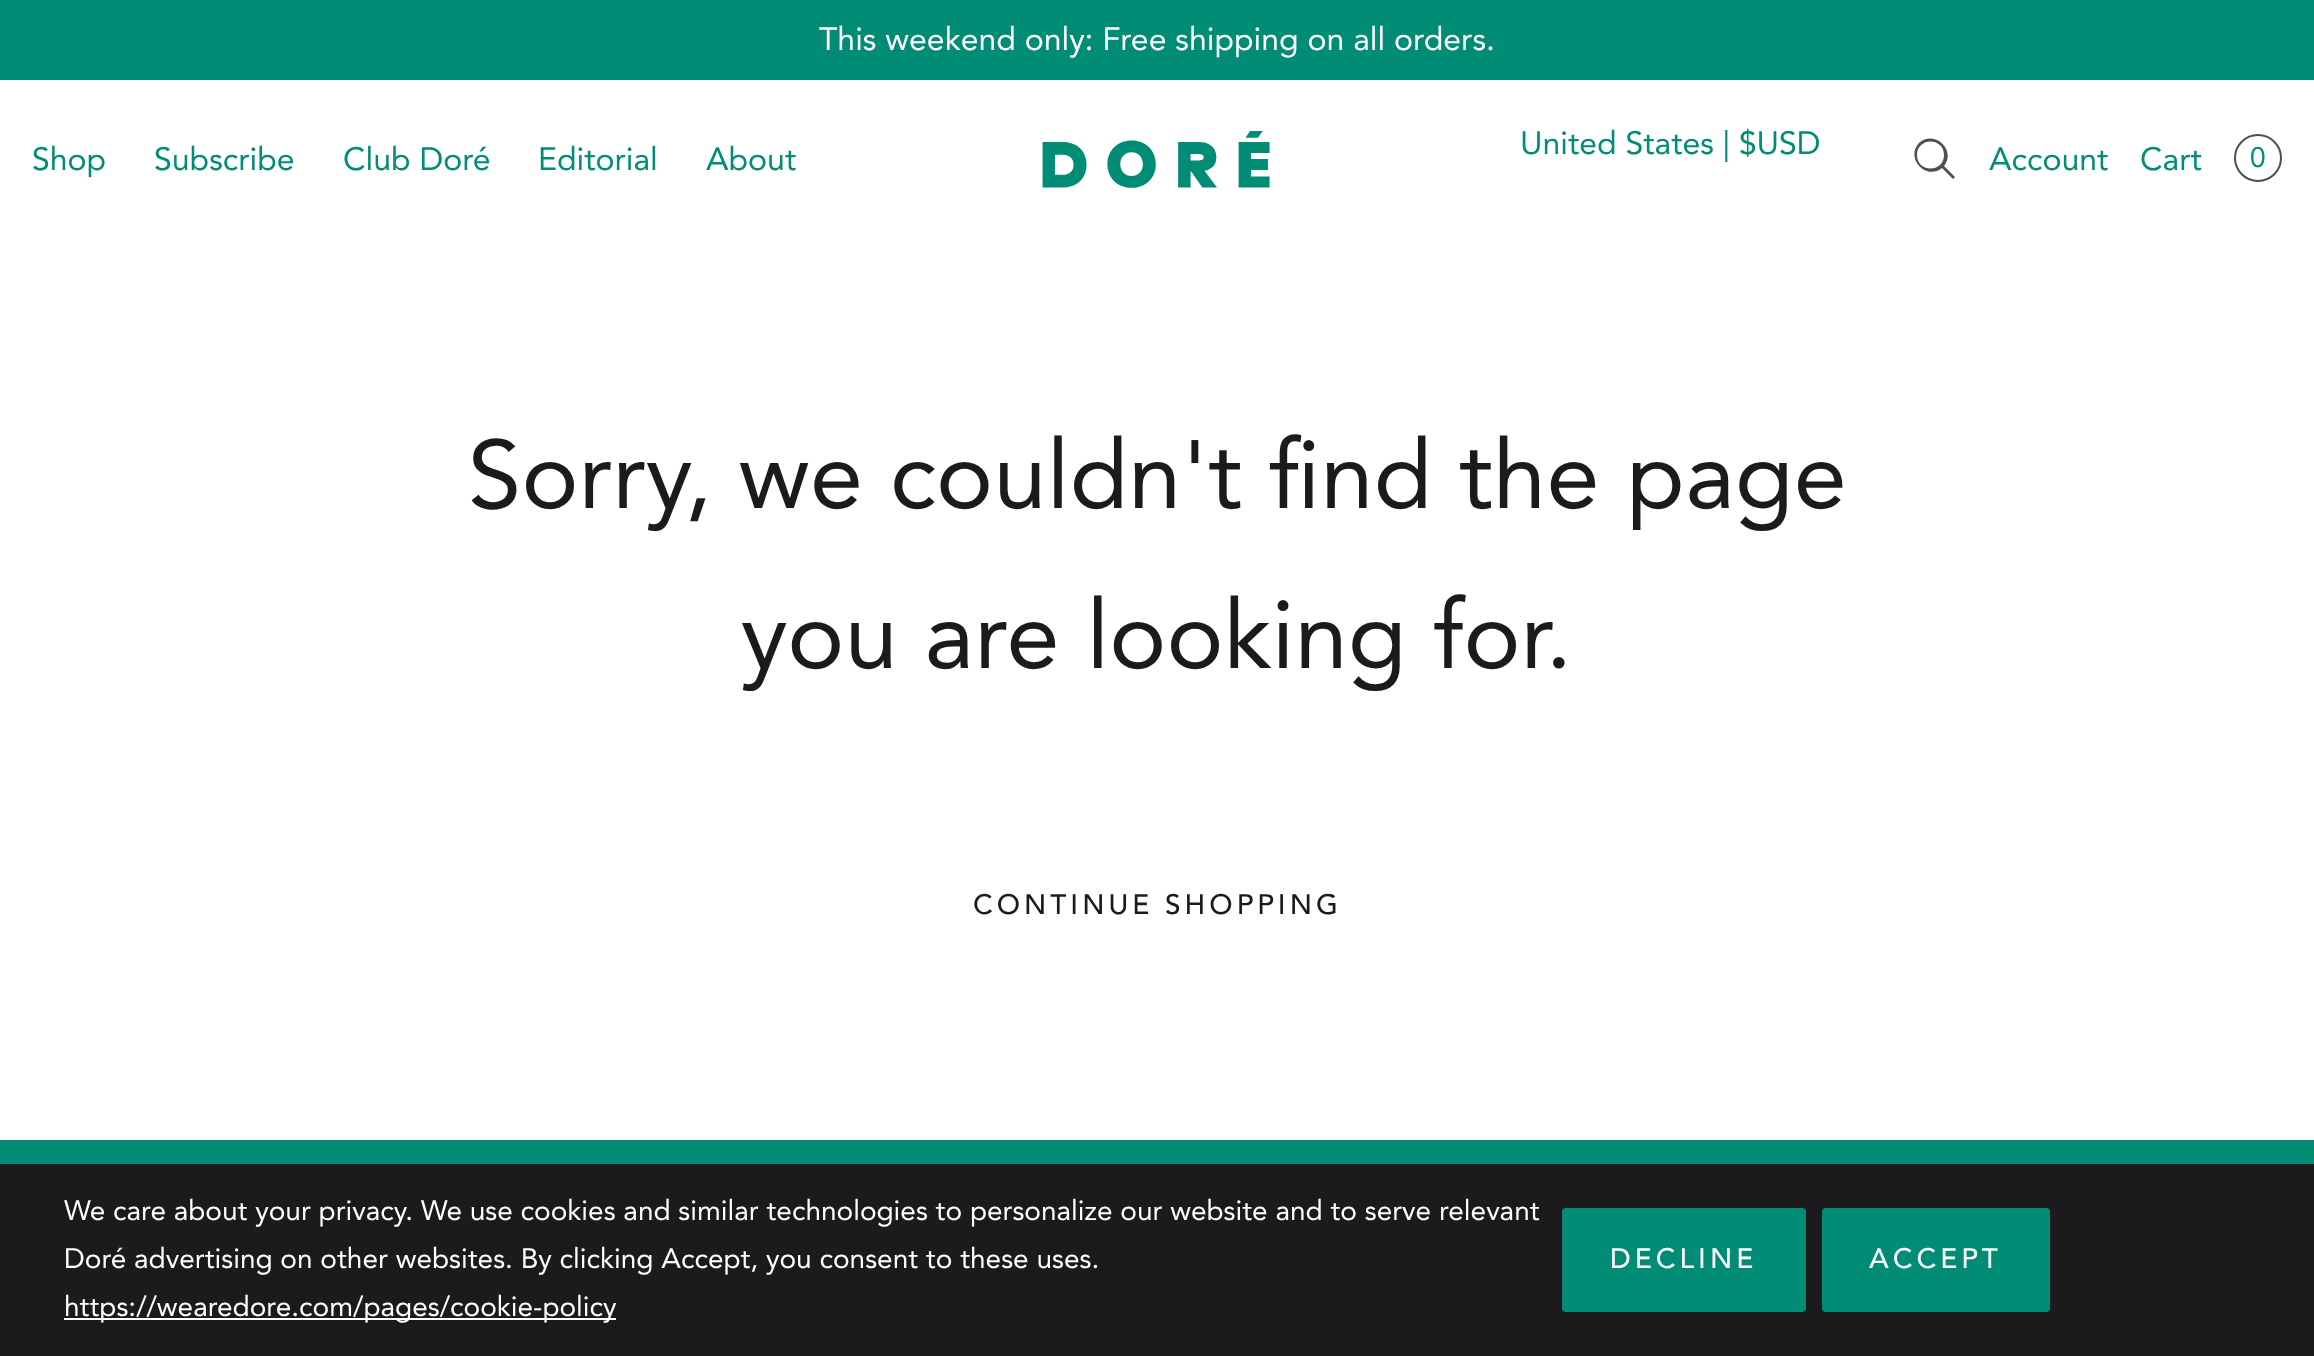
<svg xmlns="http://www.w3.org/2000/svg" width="2314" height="1356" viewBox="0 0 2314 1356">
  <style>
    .t1 { font: 32px Avenir; fill: #fff; }
    .t2 { font: 32px Avenir; fill: #008c75; }
    .t3 { font: 28px Avenir; fill: #008c75; }
    .t4 { font: 96px Avenir; fill: #1d1a1e; }
    .t5 { font: 500 28px Avenir; letter-spacing: 4px; fill: #1d1a1e; }
    .t6 { font: 28px Avenir; fill: #fff; }
    .t7 { font: 500 28px Avenir; letter-spacing: 4px; fill: #fff; }
  </style>
  <rect width="100%" height="100%" fill="#fff"/>
  <rect x="0" y="0" width="2314" height="80" fill="#008c75"/>
  <text x="819" y="50" class="t1">This weekend only: Free shipping on all orders.</text>
  <text x="32" y="170" class="t2">Shop</text>
  <text x="154" y="170" class="t2">Subscribe</text>
  <text x="343" y="170" class="t2">Club Doré</text>
  <text x="538" y="170" class="t2">Editorial</text>
  <text x="706" y="170" class="t2">About</text>
  <image x="1042" y="131" width="228" height="57" href="images/1.png"/>
  <text x="1520" y="154" class="t2">United States | $USD</text>
  <path d="M1955 177L1944 166C1957 150 1934 129 1919 143C1905 158 1926 181 1942 168L1953 179ZM1917 155C1917 137 1944 137 1944 155C1944 173 1917 173 1917 155Z" fill="#4f4f4f" fill-rule="evenodd"/>
  <text x="1989" y="170" class="t2">Account</text>
  <text x="2140" y="170" class="t2">Cart</text>
  <circle cx="2258" cy="158" r="23" fill="none" stroke="#4f4f4f" stroke-width="2"/>
  <text x="2250" y="167" class="t3">0</text>
  <text x="468" y="508" class="t4">Sorry, we couldn't find the page</text>
  <text x="741" y="668" class="t4">you are looking for.</text>
  <text x="973" y="914" class="t5">CONTINUE SHOPPING</text>
  <rect x="0" y="1140" width="2314" height="24" fill="#008c75"/>
  <rect x="0" y="1164" width="2314" height="192" fill="#1d1a1e"/>
  <text x="64" y="1220" class="t6">We care about your privacy. We use cookies and similar technologies to personalize our website and to serve relevant</text>
  <text x="64" y="1268" class="t6">Doré advertising on other websites. By clicking Accept, you consent to these uses.</text>
  <rect x="64" y="1318" width="552" height="2" fill="#fff"/>
  <text x="64" y="1316" class="t6">https://wearedore.com/pages/cookie-policy</text>
  <rect x="1562" y="1208" width="244" height="104" rx="4" fill="#008c75"/>
  <text x="1610" y="1268" class="t7">DECLINE</text>
  <rect x="1822" y="1208" width="228" height="104" rx="4" fill="#008c75"/>
  <text x="1869" y="1268" class="t7">ACCEPT</text>
</svg>
